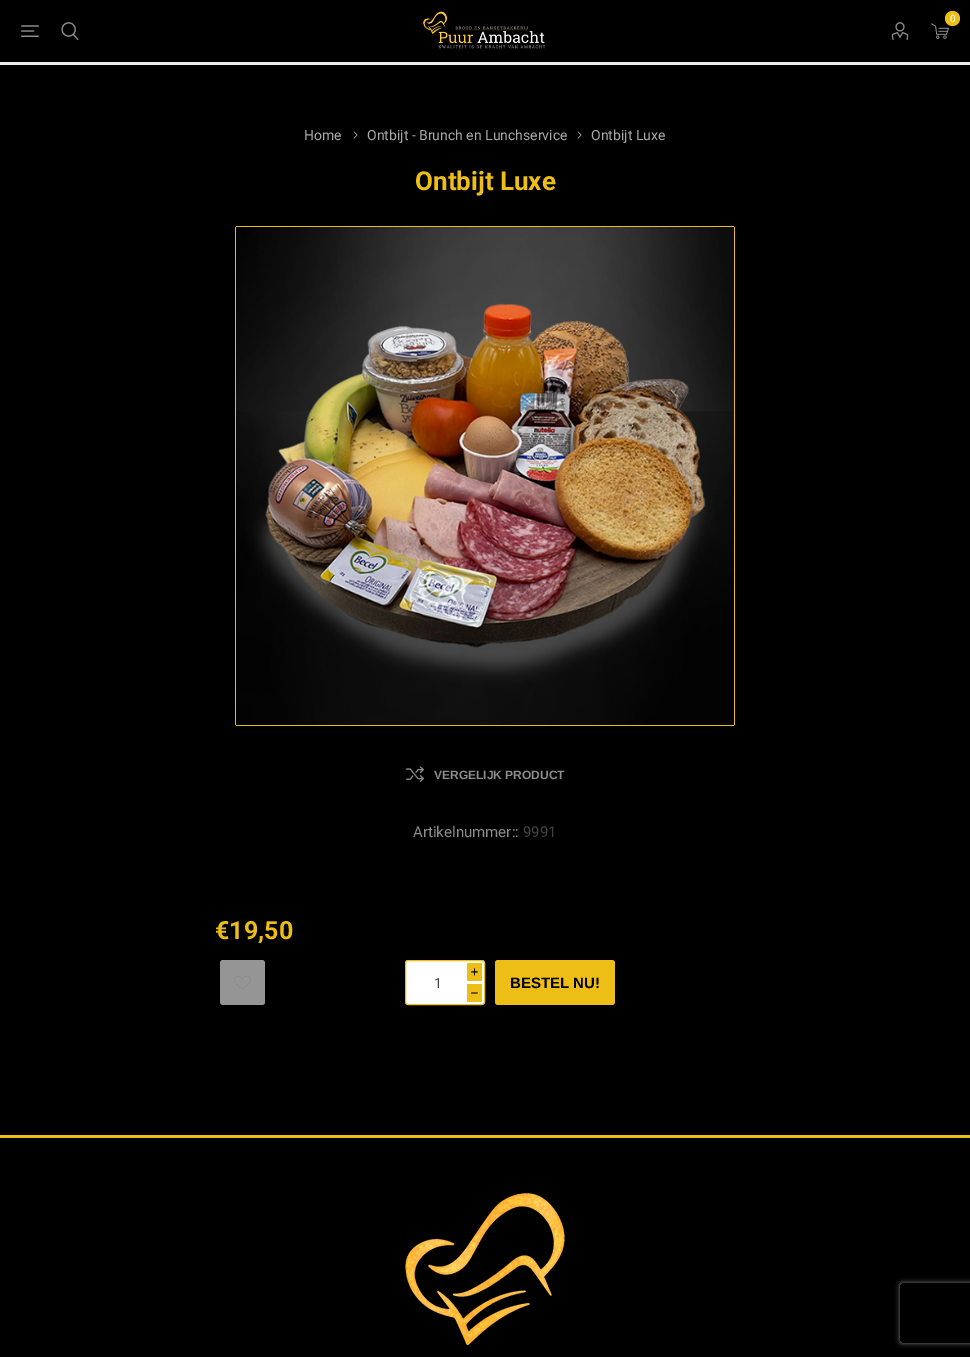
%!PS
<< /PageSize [970 1357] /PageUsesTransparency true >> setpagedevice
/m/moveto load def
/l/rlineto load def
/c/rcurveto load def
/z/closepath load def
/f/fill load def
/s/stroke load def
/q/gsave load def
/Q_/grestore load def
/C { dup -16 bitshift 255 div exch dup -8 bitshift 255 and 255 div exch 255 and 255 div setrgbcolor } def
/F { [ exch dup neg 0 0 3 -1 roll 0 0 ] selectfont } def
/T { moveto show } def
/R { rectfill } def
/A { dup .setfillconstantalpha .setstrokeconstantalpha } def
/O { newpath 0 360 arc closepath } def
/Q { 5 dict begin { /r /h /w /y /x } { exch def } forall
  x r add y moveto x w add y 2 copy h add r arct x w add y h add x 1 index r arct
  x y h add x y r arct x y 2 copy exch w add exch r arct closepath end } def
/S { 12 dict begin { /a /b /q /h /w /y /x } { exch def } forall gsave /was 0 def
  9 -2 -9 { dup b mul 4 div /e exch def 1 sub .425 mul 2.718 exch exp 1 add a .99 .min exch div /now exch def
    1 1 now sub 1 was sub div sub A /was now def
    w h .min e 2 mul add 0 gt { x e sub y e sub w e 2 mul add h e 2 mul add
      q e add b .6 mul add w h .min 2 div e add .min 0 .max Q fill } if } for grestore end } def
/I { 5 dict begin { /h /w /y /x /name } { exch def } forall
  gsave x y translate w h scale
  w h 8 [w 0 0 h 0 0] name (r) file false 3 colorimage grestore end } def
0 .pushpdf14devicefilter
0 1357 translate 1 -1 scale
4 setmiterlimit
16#000000 C
0 0 970 1357 R
16#EEEEEE C
0 62 970 3 R
(1.rgb) 423 11 123 38 I
(2.rgb) 931 23 18 16 I
16#EDBE16 C
952.5 18.5 7.5 O f
/Roboto-Regular 10 F
16#FFFFFF C
(0) 950 22 T
(3.rgb) 21 25 18 12 I
(4.rgb) 61 22 18 19 I
(5.rgb) 891 22 18 19 I
/Roboto-Regular 14 F
16#A9A9A9 C
(Home) 304 140 T
(6.rgb) 353 131 5 8 I
(Ontbijt - Brunch en Lunchservice) 367 140 T
(6.rgb) 577 131 5 8 I
(Ontbijt Luxe) 591 140 T
/Roboto-Bold 26 F
16#EDBE16 C
(Ontbijt Luxe) 415 190 T
16#EBBC16 C
238 226 m -2 0 -3 1 -3 3 c 0 494 l 0 2 1 3 3 3 c 494 0 l 2 0 3 -1 3 -3 c 0 -494 l 0 -2 -1 -3 -3 -3 c z 236 227 m 0 498 l 498 0 l 0 -498 l z eofill
(7.rgb) 236 227 498 498 I
(8.rgb) 406 766 18 16 I
/LiberationSans-Bold 12 F
16#8C8C8C C
(VERGELIJK PRODUCT) 434 779 T
/Roboto-Regular 15 F
(Artikelnummer::) 413 837 T
16#444444 C
(9991) 523 837 T
/Roboto-Bold 25 F
16#EDBE16 C
(€19,50) 215 939 T
16#959595 C
220 960 45 45 3 Q f
(9.rgb) 234 976 17 14 I
16#FFFFFF C
405.5 960.5 79 44 2.5 Q q f Q_
16#EDBE16 C
s
467 963 15 18 R
/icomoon-Regular 7 F
16#000000 C
(i) 471 975 T
/Roboto-Regular 14 F
16#444444 C
(1) 434 988 T
16#EDBE16 C
467 984 15 18 R
/icomoon-Regular 7 F
16#000000 C
(h) 471 996 T
16#EDBE16 C
495 960 120 45 3 Q f
/LiberationSans-Bold 15 F
16#000000 C
(BESTEL NU!) 510 988 T
16#EDBE16 C
0 1135 970 3 R
(10.rgb) 405 1193 160 153 I
q
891 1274 m 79 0 l 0 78 l -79 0 l z 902 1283 m 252 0 l 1 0 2 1 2 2 c 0 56 l 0 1 -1 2 -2 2 c -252 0 l -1 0 -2 -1 -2 -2 c 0 -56 l 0 -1 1 -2 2 -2 c z eoclip newpath
16#808080 C
900 1283 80 60 2 2.5 1 S
Q_
.poppdf14devicefilter showpage
